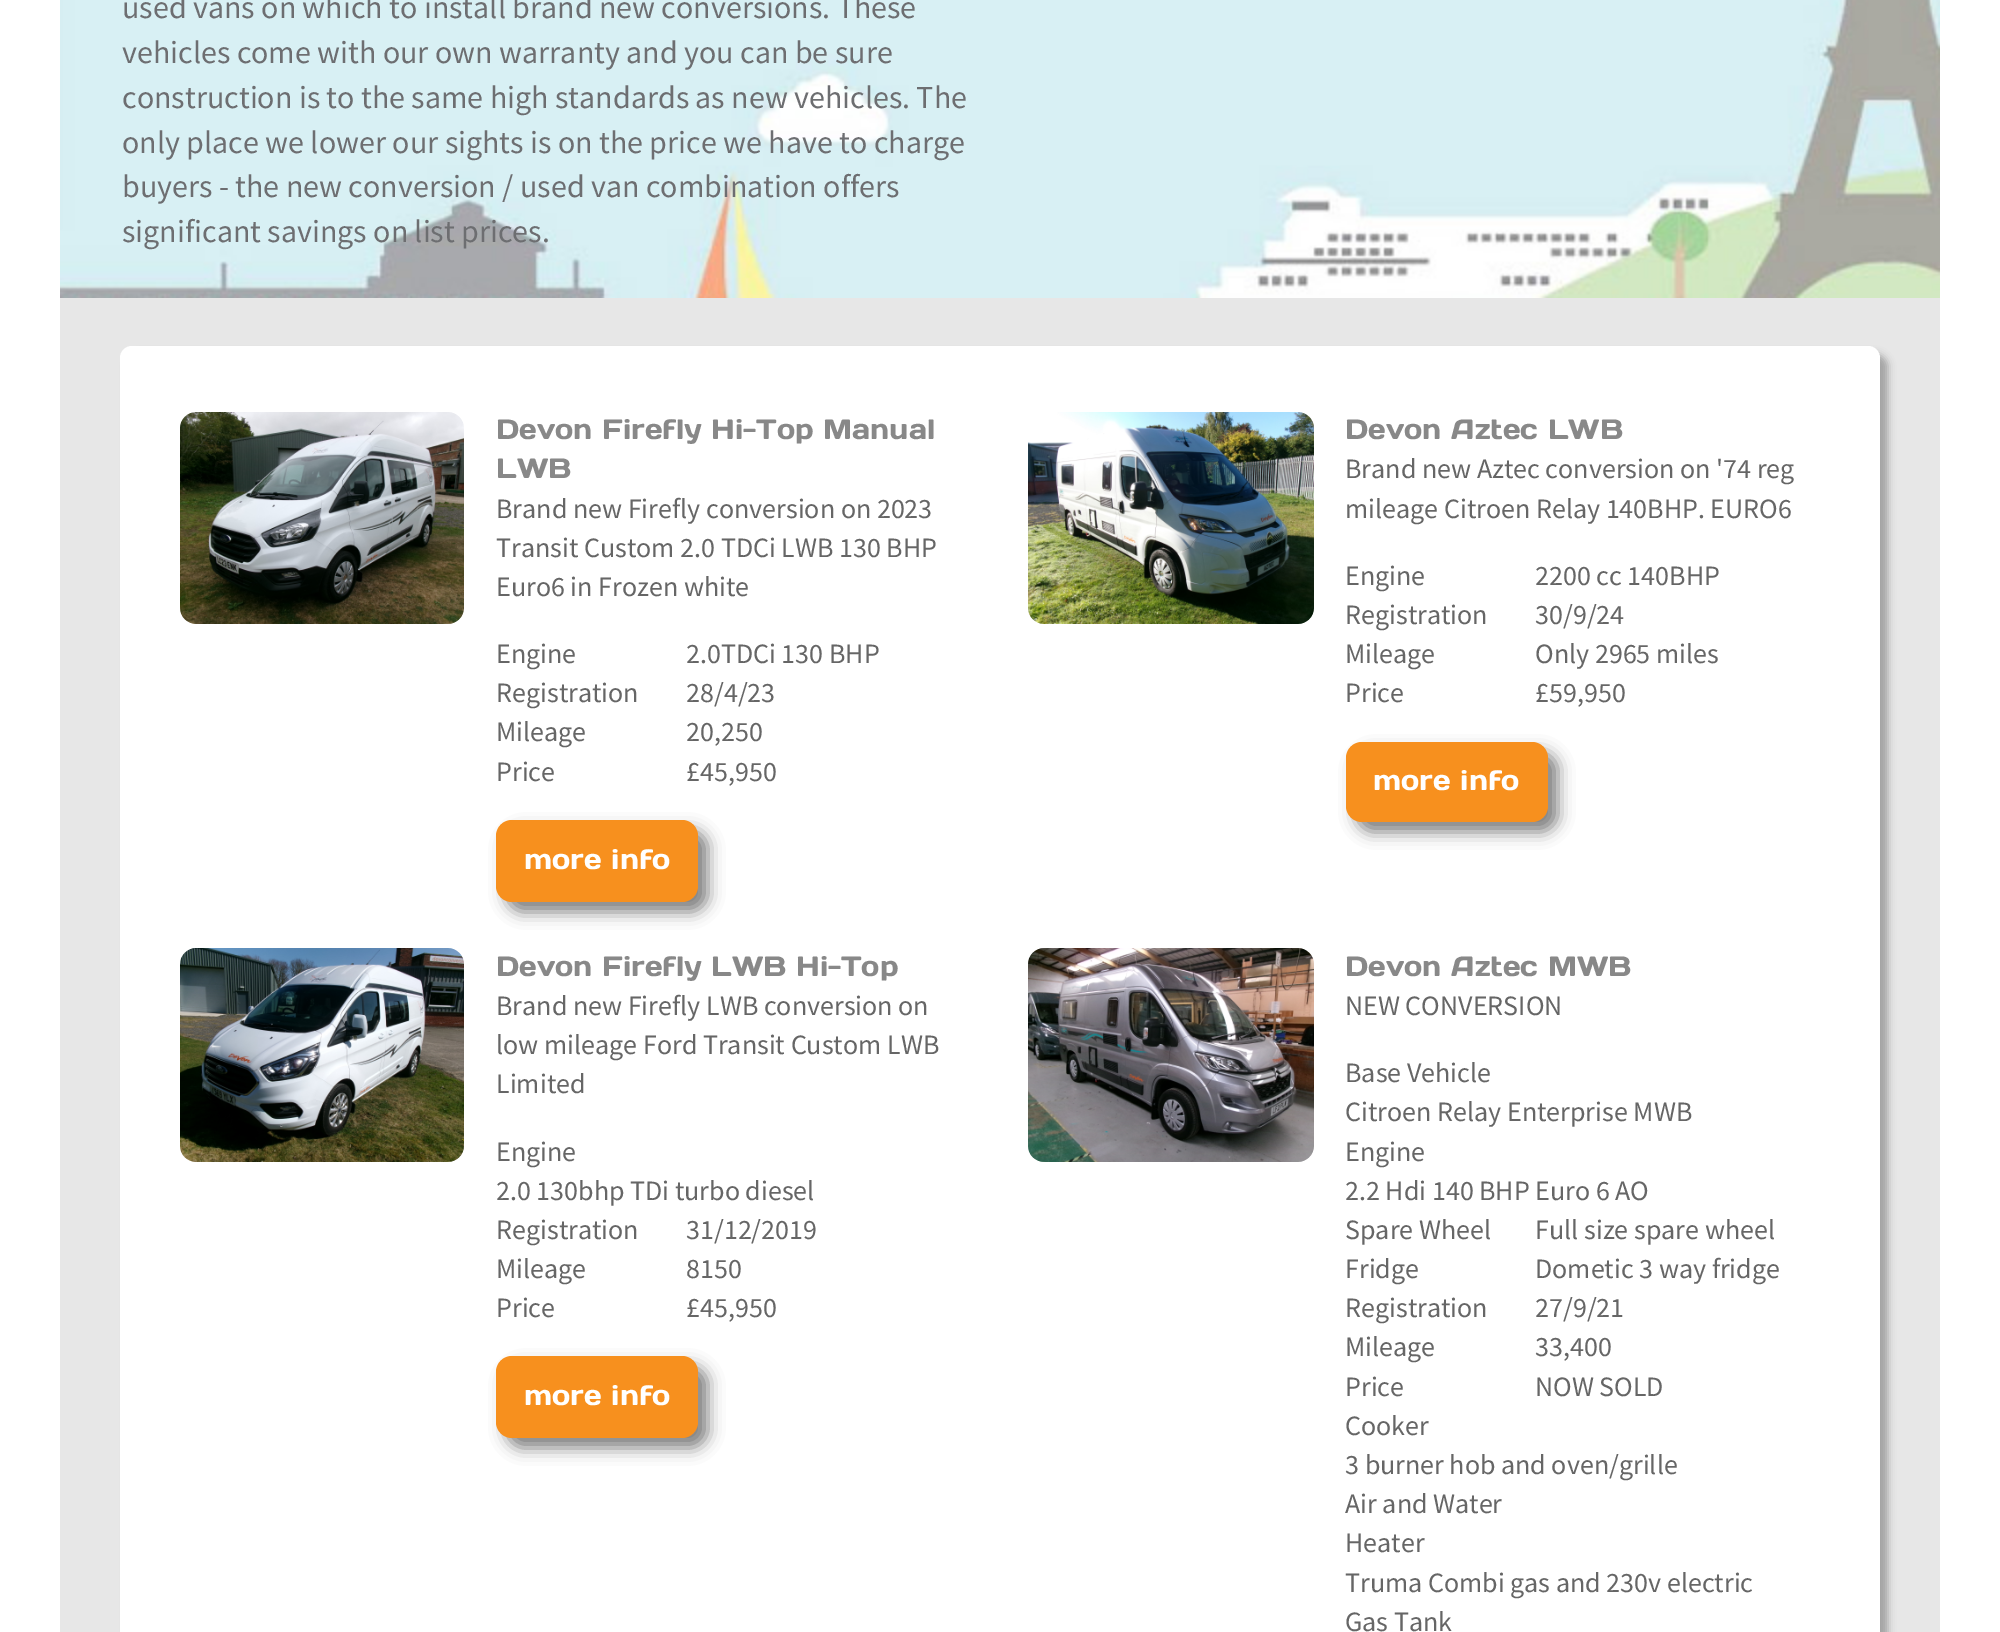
%!PS
<< /PageSize [2000 1632] /PageUsesTransparency true >> setpagedevice
/f/fill load def
/C { dup -16 bitshift 255 div exch dup -8 bitshift 255 and 255 div exch 255 and 255 div setrgbcolor } def
/F { [ exch dup neg 0 0 3 -1 roll 0 0 ] selectfont } def
/T { moveto show } def
/R { rectfill } def
/A { dup .setfillconstantalpha .setstrokeconstantalpha } def
/Q { 5 dict begin { /r /h /w /y /x } { exch def } forall
  x r add y moveto x w add y 2 copy h add r arct x w add y h add x 1 index r arct
  x y h add x y r arct x y 2 copy exch w add exch r arct closepath end } def
/S { 12 dict begin { /a /b /q /h /w /y /x } { exch def } forall gsave /was 0 def
  9 -2 -9 { dup b mul 4 div /e exch def 1 sub .425 mul 2.718 exch exp 1 add a .99 .min exch div /now exch def
    1 1 now sub 1 was sub div sub A /was now def
    w h .min e 2 mul add 0 gt { x e sub y e sub w e 2 mul add h e 2 mul add
      q e add b .6 mul add w h .min 2 div e add .min 0 .max Q fill } if } for grestore end } def
/I { 5 dict begin { /h /w /y /x /name } { exch def } forall
  gsave x y translate w h scale
  w h 8 [w 0 0 h 0 0] name (r) file false 3 colorimage grestore end } def
0 .pushpdf14devicefilter
0 1632 translate 1 -1 scale
4 setmiterlimit
16#FFFFFF C
0 0 2000 1632 R
(1.rgb) 60 0 1880 298 I
/SourceSansPro-Regular 32 F
16#6D6E71 C
(used vans on which to install brand new conversions. These) 122 18 T
(vehicles come with our own warranty and you can be sure) 122 63 T
(construction is to the same high standards as new vehicles. The) 122 108 T
(only place we lower our sights is on the price we have to charge) 122 153 T
(buyers - the new conversion / used van combination offers) 122 197 T
(significant savings on list prices.) 122 242 T
16#E7E7E7 C
60 298 1880 1334 R
16#000000 C
128 354 1760 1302 12 4 .3 S
16#FFFFFF C
120 346 1760 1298 12 Q f
(2.rgb) 180 412 284 212 I
/DaysOne-Regular 28 F
16#888888 C
(Devon Firefly Hi-Top Manual) 496 439 T
(LWB) 496 478 T
/SourceSansPro-Regular 28 F
16#666666 C
(Brand new Firefly conversion on 2023) 496 518 T
(Transit Custom 2.0 TDCi LWB 130 BHP) 496 557 T
(Euro6 in Frozen white) 496 596 T
(Engine) 496 663 T
(2.0TDCi 130 BHP) 686 663 T
(Registration) 496 702 T
(28/4/23) 686 702 T
(Mileage) 496 741 T
(20,250) 686 741 T
(Price) 496 781 T
(£45,950) 686 781 T
16#000000 C
506 830 202 82 16 8 .5 S
16#F7901E C
496 820 202 82 16 Q f
/DaysOne-Regular 28 F
16#FFFFFF C
(more info) 524 869 T
(3.rgb) 1028 412 286 212 I
16#888888 C
(Devon Aztec LWB) 1345 439 T
/SourceSansPro-Regular 28 F
16#666666 C
(Brand new Aztec conversion on '74 reg) 1345 478 T
(mileage Citroen Relay 140BHP. EURO6) 1345 518 T
(Engine) 1345 585 T
(2200 cc 140BHP) 1535 585 T
(Registration) 1345 624 T
(30/9/24) 1535 624 T
(Mileage) 1345 663 T
(Only 2965 miles) 1535 663 T
(Price) 1345 702 T
(£59,950) 1535 702 T
16#000000 C
1356 752 202 80 16 8 .5 S
16#F7901E C
1346 742 202 80 16 Q f
/DaysOne-Regular 28 F
16#FFFFFF C
(more info) 1373 790 T
(4.rgb) 180 948 284 214 I
16#888888 C
(Devon Firefly LWB Hi-Top) 496 976 T
/SourceSansPro-Regular 28 F
16#666666 C
(Brand new Firefly LWB conversion on) 496 1015 T
(low mileage Ford Transit Custom LWB) 496 1054 T
(Limited) 496 1093 T
(Engine) 496 1161 T
(2.0 130bhp TDi turbo diesel) 496 1200 T
(Registration) 496 1239 T
(31/12/2019) 686 1239 T
(Mileage) 496 1278 T
(8150) 686 1278 T
(Price) 496 1317 T
(£45,950) 686 1317 T
16#000000 C
506 1366 202 82 16 8 .5 S
16#F7901E C
496 1356 202 82 16 Q f
/DaysOne-Regular 28 F
16#FFFFFF C
(more info) 524 1405 T
(5.rgb) 1028 948 286 214 I
16#888888 C
(Devon Aztec MWB) 1345 976 T
/SourceSansPro-Regular 28 F
16#666666 C
(NEW CONVERSION) 1345 1015 T
(Base Vehicle) 1345 1082 T
(Citroen Relay Enterprise MWB) 1345 1121 T
(Engine) 1345 1161 T
(2.2 Hdi 140 BHP Euro 6 AO) 1345 1200 T
(Spare Wheel) 1345 1239 T
(Full size spare wheel) 1535 1239 T
(Fridge) 1345 1278 T
(Dometic 3 way fridge) 1535 1278 T
(Registration) 1345 1317 T
(27/9/21) 1535 1317 T
(Mileage) 1345 1356 T
(33,400) 1535 1356 T
(Price) 1345 1396 T
(NOW SOLD) 1535 1396 T
(Cooker) 1345 1435 T
(3 burner hob and oven/grille) 1345 1474 T
(Air and Water) 1345 1513 T
(Heater) 1345 1552 T
(Truma Combi gas and 230v electric) 1345 1592 T
(Gas Tank) 1345 1631 T
.poppdf14devicefilter showpage
